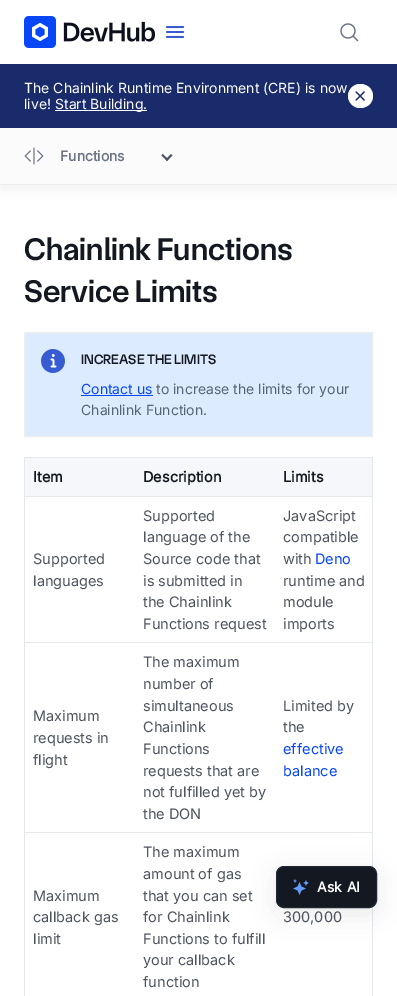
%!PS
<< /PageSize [397 996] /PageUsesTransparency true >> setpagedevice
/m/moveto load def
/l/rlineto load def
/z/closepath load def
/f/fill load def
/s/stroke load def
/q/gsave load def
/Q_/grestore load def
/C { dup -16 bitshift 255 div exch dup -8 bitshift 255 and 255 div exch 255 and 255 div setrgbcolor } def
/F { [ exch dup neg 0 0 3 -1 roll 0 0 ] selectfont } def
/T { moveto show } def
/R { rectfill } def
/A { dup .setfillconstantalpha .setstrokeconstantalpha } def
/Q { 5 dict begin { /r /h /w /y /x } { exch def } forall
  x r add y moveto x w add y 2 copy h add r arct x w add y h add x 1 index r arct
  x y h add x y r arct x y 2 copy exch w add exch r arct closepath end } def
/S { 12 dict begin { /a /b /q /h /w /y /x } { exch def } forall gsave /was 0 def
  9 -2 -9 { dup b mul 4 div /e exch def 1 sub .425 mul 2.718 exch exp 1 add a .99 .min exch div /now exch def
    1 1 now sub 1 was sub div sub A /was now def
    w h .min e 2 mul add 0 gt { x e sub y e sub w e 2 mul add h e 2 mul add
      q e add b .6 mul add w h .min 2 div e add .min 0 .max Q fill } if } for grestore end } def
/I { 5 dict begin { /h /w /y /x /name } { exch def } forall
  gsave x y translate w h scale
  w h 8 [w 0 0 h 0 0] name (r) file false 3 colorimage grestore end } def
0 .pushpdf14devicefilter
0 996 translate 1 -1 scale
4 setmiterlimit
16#FFFFFF C
0 0 397 996 R
(1.rgb) 24 16 131 32 I
(2.rgb) 165 26 20 12 I
(3.rgb) 340 23 19 19 I
16#1A2B6B C
0 64 397 64 R
/Inter-Regular 14 F
16#FFFFFF C
(The Chainlink Runtime Environment \(CRE\) is now) 24 93 T
(live!) 24 109 T
55 110 92 1 R
(Start Building.) 55 109 T
348 84 25 24 12 Q f
(4.rgb) 348 84 20 24 I
16#000000 C
0 132 397 57 0 6 .06 S
16#FBFBFC C
0 130 397 54 R
16#ECEDEF C
0 184 397 1 R
(5.rgb) 24 147 20 18 I
/Inter-Bold 14 F
16#6C7585 C
(Functions) 60 161 T
16#4E5560 C
171 154 m 1.5 1.5 l -5.5 5.5 l -1.5 -1.5 l z f
162.5 154 m 6 5.5 l -1.5 1.5 l -5.5 -5.5 l z f
/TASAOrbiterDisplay-SemiBold 32 F
16#141921 C
(Chainlink Functions) 24 260 T
(Service Limits) 24 302 T
16#DCEBFF C
24.5 332.5 m 348 0 l 0 104 l -348 0 l z q f Q_
16#EEEEEE C
s
(6.rgb) 41 349 24 24 I
/TASAOrbiterDisplay-SemiBold 14 F
16#141921 C
(INCREASE THE LIMITS) 81 364 T
/Inter-Regular 14 F
16#0847F7 C
(Contact us) 81 394 T
81 395 72 1 R
16#586474 C
(to increase the limits for your) 156 394 T
(Chainlink Function.) 81 415 T
16#E4E8ED C
24 457 349 1 R
372 457 1 539 R
24 457 1 539 R
16#F5F7FA C
25 458 347 38 R
/Inter-Bold 14.5 F
16#141921 C
(Item) 33 482 T
(Description) 143 482 T
(Limits) 283 482 T
16#E4E8ED C
24 496 349 1 R
/Inter-Regular 14.5 F
16#4E5560 C
(Supported) 33 564 T
(languages) 33 586 T
(Supported) 143 521 T
(language of the) 143 542 T
(Source code that) 143 564 T
(is submitted in) 143 586 T
(the Chainlink) 143 607 T
(Functions request) 143 629 T
(JavaScript) 283 521 T
(compatible) 283 542 T
(with) 283 564 T
16#0847F7 C
(Deno) 315 564 T
16#4E5560 C
(runtime and) 283 586 T
(module) 283 607 T
(imports) 283 629 T
16#E4E8ED C
24 642 349 1 R
16#4E5560 C
(Maximum) 33 721 T
(requests in) 33 743 T
(flight) 33 765 T
(The maximum) 143 667 T
(number of) 143 689 T
(simultaneous) 143 711 T
(Chainlink) 143 732 T
(Functions) 143 754 T
(requests that are) 143 776 T
(not fulfilled yet by) 143 797 T
(the DON) 143 819 T
(Limited by) 283 711 T
(the) 283 732 T
16#0847F7 C
(effective) 283 754 T
(balance) 283 776 T
16#E4E8ED C
24 832 349 1 R
16#4E5560 C
(Maximum) 33 901 T
(callback gas) 33 922 T
(limit) 33 944 T
(The maximum) 143 857 T
(amount of gas) 143 879 T
(that you can set) 143 901 T
(for Chainlink) 143 922 T
(Functions to fulfill) 143 944 T
(your callback) 143 965 T
(function) 143 987 T
(300,000) 283 922 T
16#000000 C
276 872 101 42 8 12 .08 S
16#141921 C
276.5 866.5 100 41 7.5 Q q f Q_
16#212732 C
s
(7.rgb) 293 879 16 16 I
/Inter-Bold 14 F
16#FFFFFF C
317 892 m 1 0 32 (Ask AI) widthshow
.poppdf14devicefilter showpage
